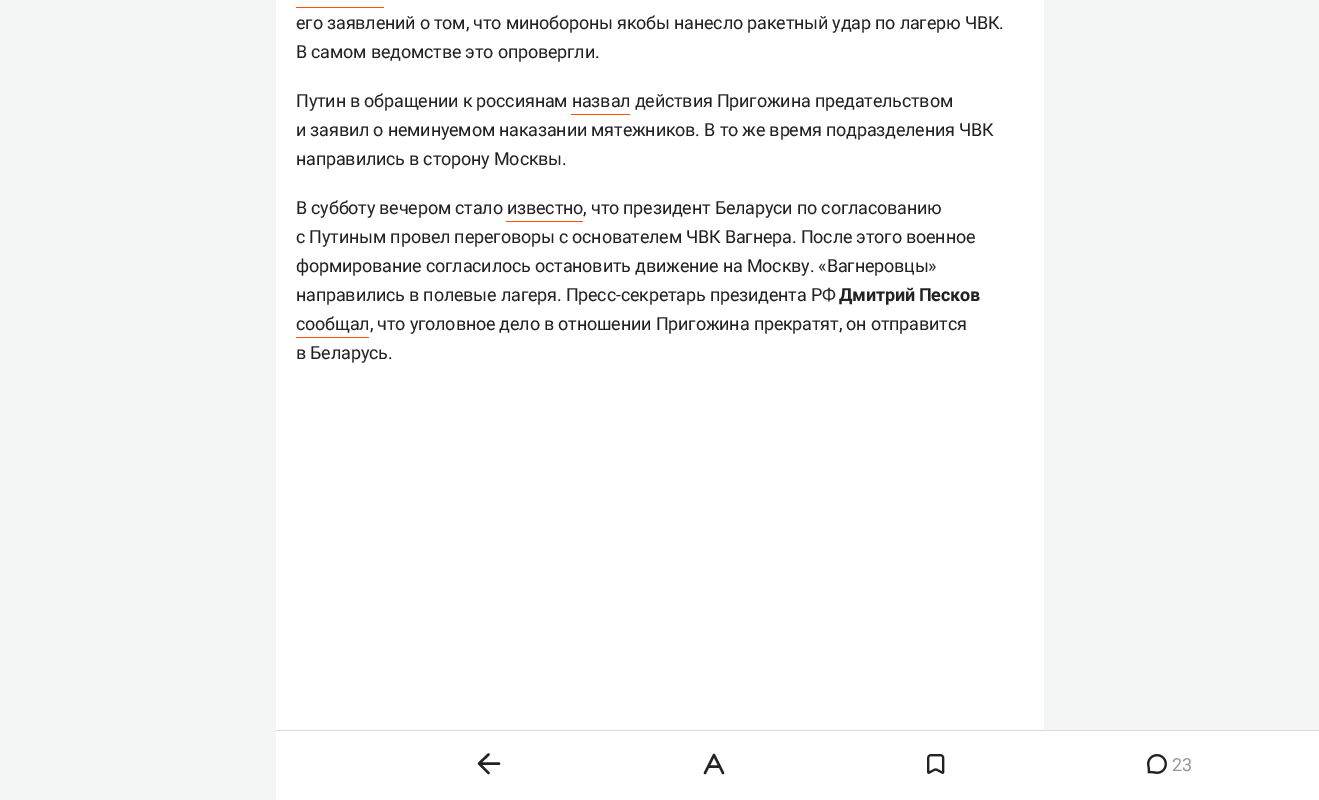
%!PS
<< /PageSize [1319 800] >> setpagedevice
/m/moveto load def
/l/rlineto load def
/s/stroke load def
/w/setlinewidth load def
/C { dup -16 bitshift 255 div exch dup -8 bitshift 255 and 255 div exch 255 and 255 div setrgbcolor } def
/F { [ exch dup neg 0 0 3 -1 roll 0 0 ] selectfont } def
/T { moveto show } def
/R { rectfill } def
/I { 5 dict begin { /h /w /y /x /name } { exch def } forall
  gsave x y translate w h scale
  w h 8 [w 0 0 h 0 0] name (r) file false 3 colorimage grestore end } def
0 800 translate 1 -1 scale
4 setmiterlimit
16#F4F5F5 C
0 0 1319 800 R
16#FFFFFF C
276 0 768 730 R
16#F95102 C
296 7 88 1 R
/Roboto-Regular 18 F
16#222222 C
296 29 m -.2 0 (его заявлений о том, что минобороны якобы нанесло ракетный удар по лагерю ЧВК.) ashow
296 58 m -.2 0 (В самом ведомстве это опровергли.) ashow
296 107 m -.2 0 (Путин в обращении к россиянам назвал действия Пригожина предательством) ashow
16#F95102 C
571 114 59 1 R
16#222222 C
296 136 m -.2 0 (и заявил о неминуемом наказании мятежников. В то же время подразделения ЧВК) ashow
296 165 m -.2 0 (направились в сторону Москвы.) ashow
296 214 m -.2 0 (В субботу вечером стало известно, что президент Беларуси по согласованию) ashow
16#F95102 C
506 221 77 1 R
16#222222 C
296 243 m -.2 0 (с Путиным провел переговоры с основателем ЧВК Вагнера. После этого военное) ashow
296 272 m -.2 0 (формирование согласилось остановить движение на Москву. «Вагнеровцы») ashow
296 301 m -.2 0 (направились в полевые лагеря. Пресс-секретарь президента РФ) ashow
/Roboto-Bold 18 F
839 301 m -.2 0 (Дмитрий Песков) ashow
/Roboto-Regular 18 F
296 330 m -.2 0 (сообщал, что уголовное дело в отношении Пригожина прекратят, он отправится) ashow
16#F95102 C
296 337 73 1 R
16#222222 C
296 359 m -.2 0 (в Беларусь.) ashow
16#FFFFFF C
276 731 1043 69 R
16#D9D9D9 C
276 730 1043 1 R
16#222222 C
2.4 w
1 setlinecap
1 setlinejoin
488.5 754.5 m -9.5 9 l 9.5 9.5 l 499 763.5 m -19.5 0 l s
705 773 m 9 -18 l 9 18 l 708.5 766.5 m 11 0 l s
(1.rgb) 927 754 18 20 I
(2.rgb) 1147 754 20 20 I
16#969696 C
(23) 1172 771 T
showpage
